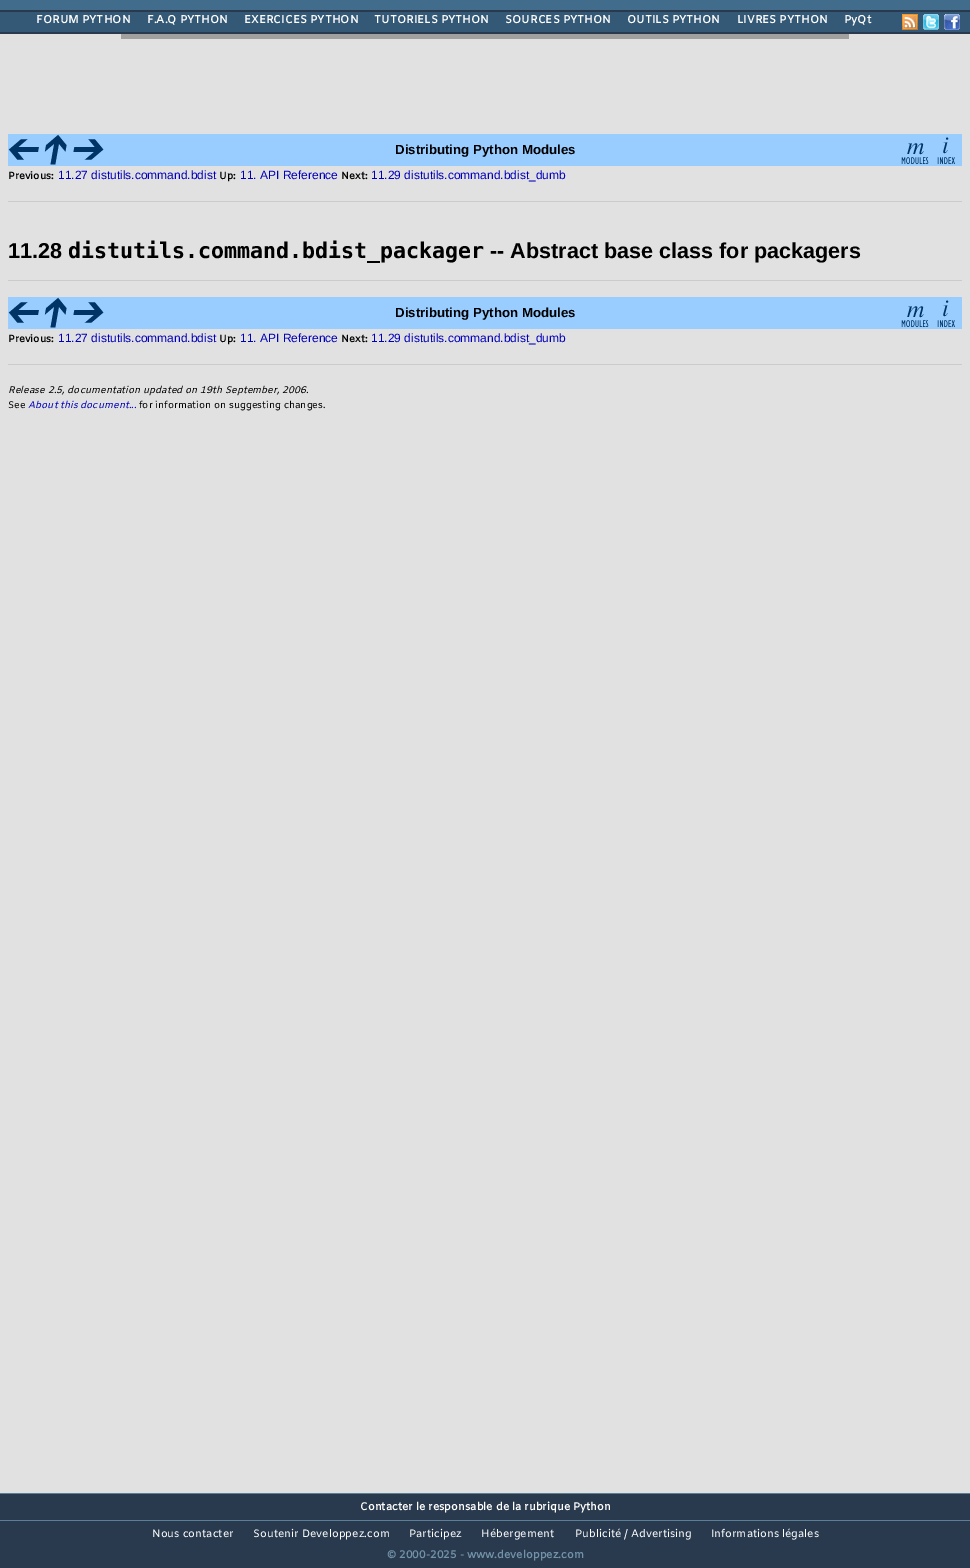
%!PS
<< /PageSize [970 1568] >> setpagedevice
/C { dup -16 bitshift 255 div exch dup -8 bitshift 255 and 255 div exch 255 and 255 div setrgbcolor } def
/F { [ exch dup neg 0 0 3 -1 roll 0 0 ] selectfont } def
/T { moveto show } def
/R { rectfill } def
/I { 5 dict begin { /h /w /y /x /name } { exch def } forall
  gsave x y translate w h scale
  w h 8 [w 0 0 h 0 0] name (r) file false 3 colorimage grestore end } def
0 1568 translate 1 -1 scale
4 setmiterlimit
16#293A4E C
0 0 970 1568 R
16#426C8C C
0 0 970 10 R
16#345976 C
0 12 970 20 R
/Amiko-Bold 11 F
16#FFFFFF C
(FORUM PYTHON) 36 23 T
(F.A.Q PYTHON) 147 23 T
(EXERCICES PYTHON) 244 23 T
(TUTORIELS PYTHON) 374 23 T
(SOURCES PYTHON) 505 23 T
(OUTILS PYTHON) 627 23 T
(LIVRES PYTHON) 737 23 T
(PyQt) 844 23 T
(1.rgb) 902 14 16 16 I
(2.rgb) 923 14 16 16 I
(3.rgb) 944 14 16 16 I
16#E1E1E2 C
0 34 970 1459 R
16#A0A0A0 C
121 34 728 5 R
16#99CCFF C
8 134 954 32 R
(4.rgb) 8 139 31 21 I
(5.rgb) 44 134 23 31 I
(6.rgb) 73 139 31 21 I
/LiberationSans-Bold 13.25 F
16#000000 C
(Distributing Python Modules) 395 154 T
(7.rgb) 901 143 28 21 I
(8.rgb) 937 137 18 27 I
/Amiko-Bold 10 F
(Previous:) 8 179 T
/LiberationSans-Regular 12 F
16#0000BB C
(11.27 distutils.command.bdist) 58 179 T
/Amiko-Bold 10 F
16#000000 C
(Up:) 219 179 T
/LiberationSans-Regular 12 F
16#0000BB C
(11. API Reference) 240 179 T
/Amiko-Bold 10 F
16#000000 C
(Next:) 341 179 T
/LiberationSans-Regular 12 F
16#0000BB C
(11.29 distutils.command.bdist_dumb) 371 179 T
16#CBCBCB C
8 201 954 1 R
/LiberationSans-Bold 21.6 F
16#000000 C
(11.28) 8 258 T
/DejaVuSansMono-Bold 21.6 F
(distutils.command.bdist_packager) 68 258 T
/LiberationSans-Bold 21.6 F
(-- Abstract base class for packagers) 490 258 T
16#CBCBCB C
8 280 954 1 R
16#99CCFF C
8 297 954 32 R
(4.rgb) 8 302 31 21 I
(5.rgb) 44 297 23 31 I
(6.rgb) 73 302 31 21 I
/LiberationSans-Bold 13.25 F
16#000000 C
(Distributing Python Modules) 395 317 T
(7.rgb) 901 306 28 21 I
(8.rgb) 937 300 18 27 I
/Amiko-Bold 10 F
(Previous:) 8 342 T
/LiberationSans-Regular 12 F
16#0000BB C
(11.27 distutils.command.bdist) 58 342 T
/Amiko-Bold 10 F
16#000000 C
(Up:) 219 342 T
/LiberationSans-Regular 12 F
16#0000BB C
(11. API Reference) 240 342 T
/Amiko-Bold 10 F
16#000000 C
(Next:) 341 342 T
/LiberationSans-Regular 12 F
16#0000BB C
(11.29 distutils.command.bdist_dumb) 371 342 T
16#CBCBCB C
8 364 954 1 R
/Amiko-Italic 9.6 F
16#000000 C
(Release 2.5, documentation updated on 19th September, 2006.) 8 393 T
/Amiko-Regular 9.6 F
(See) 8 408 T
/Amiko-Italic 9.6 F
16#0000BB C
(About this document...) 28 408 T
/Amiko-Regular 9.6 F
16#000000 C
(for information on suggesting changes.) 139 408 T
16#5A7F97 C
0 1493 970 1 R
0 1520 970 1 R
/Amiko-Bold 10.7 F
16#FFFFFF C
(Contacter le responsable de la rubrique Python) 360 1510 T
/Amiko-Regular 10.7 F
(Nous contacter) 152 1537 T
(Soutenir Developpez.com) 253 1537 T
(Participez) 409 1537 T
(Hébergement) 481 1537 T
(Publicité / Advertising) 575 1537 T
(Informations légales) 711 1537 T
/Amiko-Bold 10.7 F
16#7292A7 C
(© 2000-2025 - www.developpez.com) 387 1558 T
showpage
